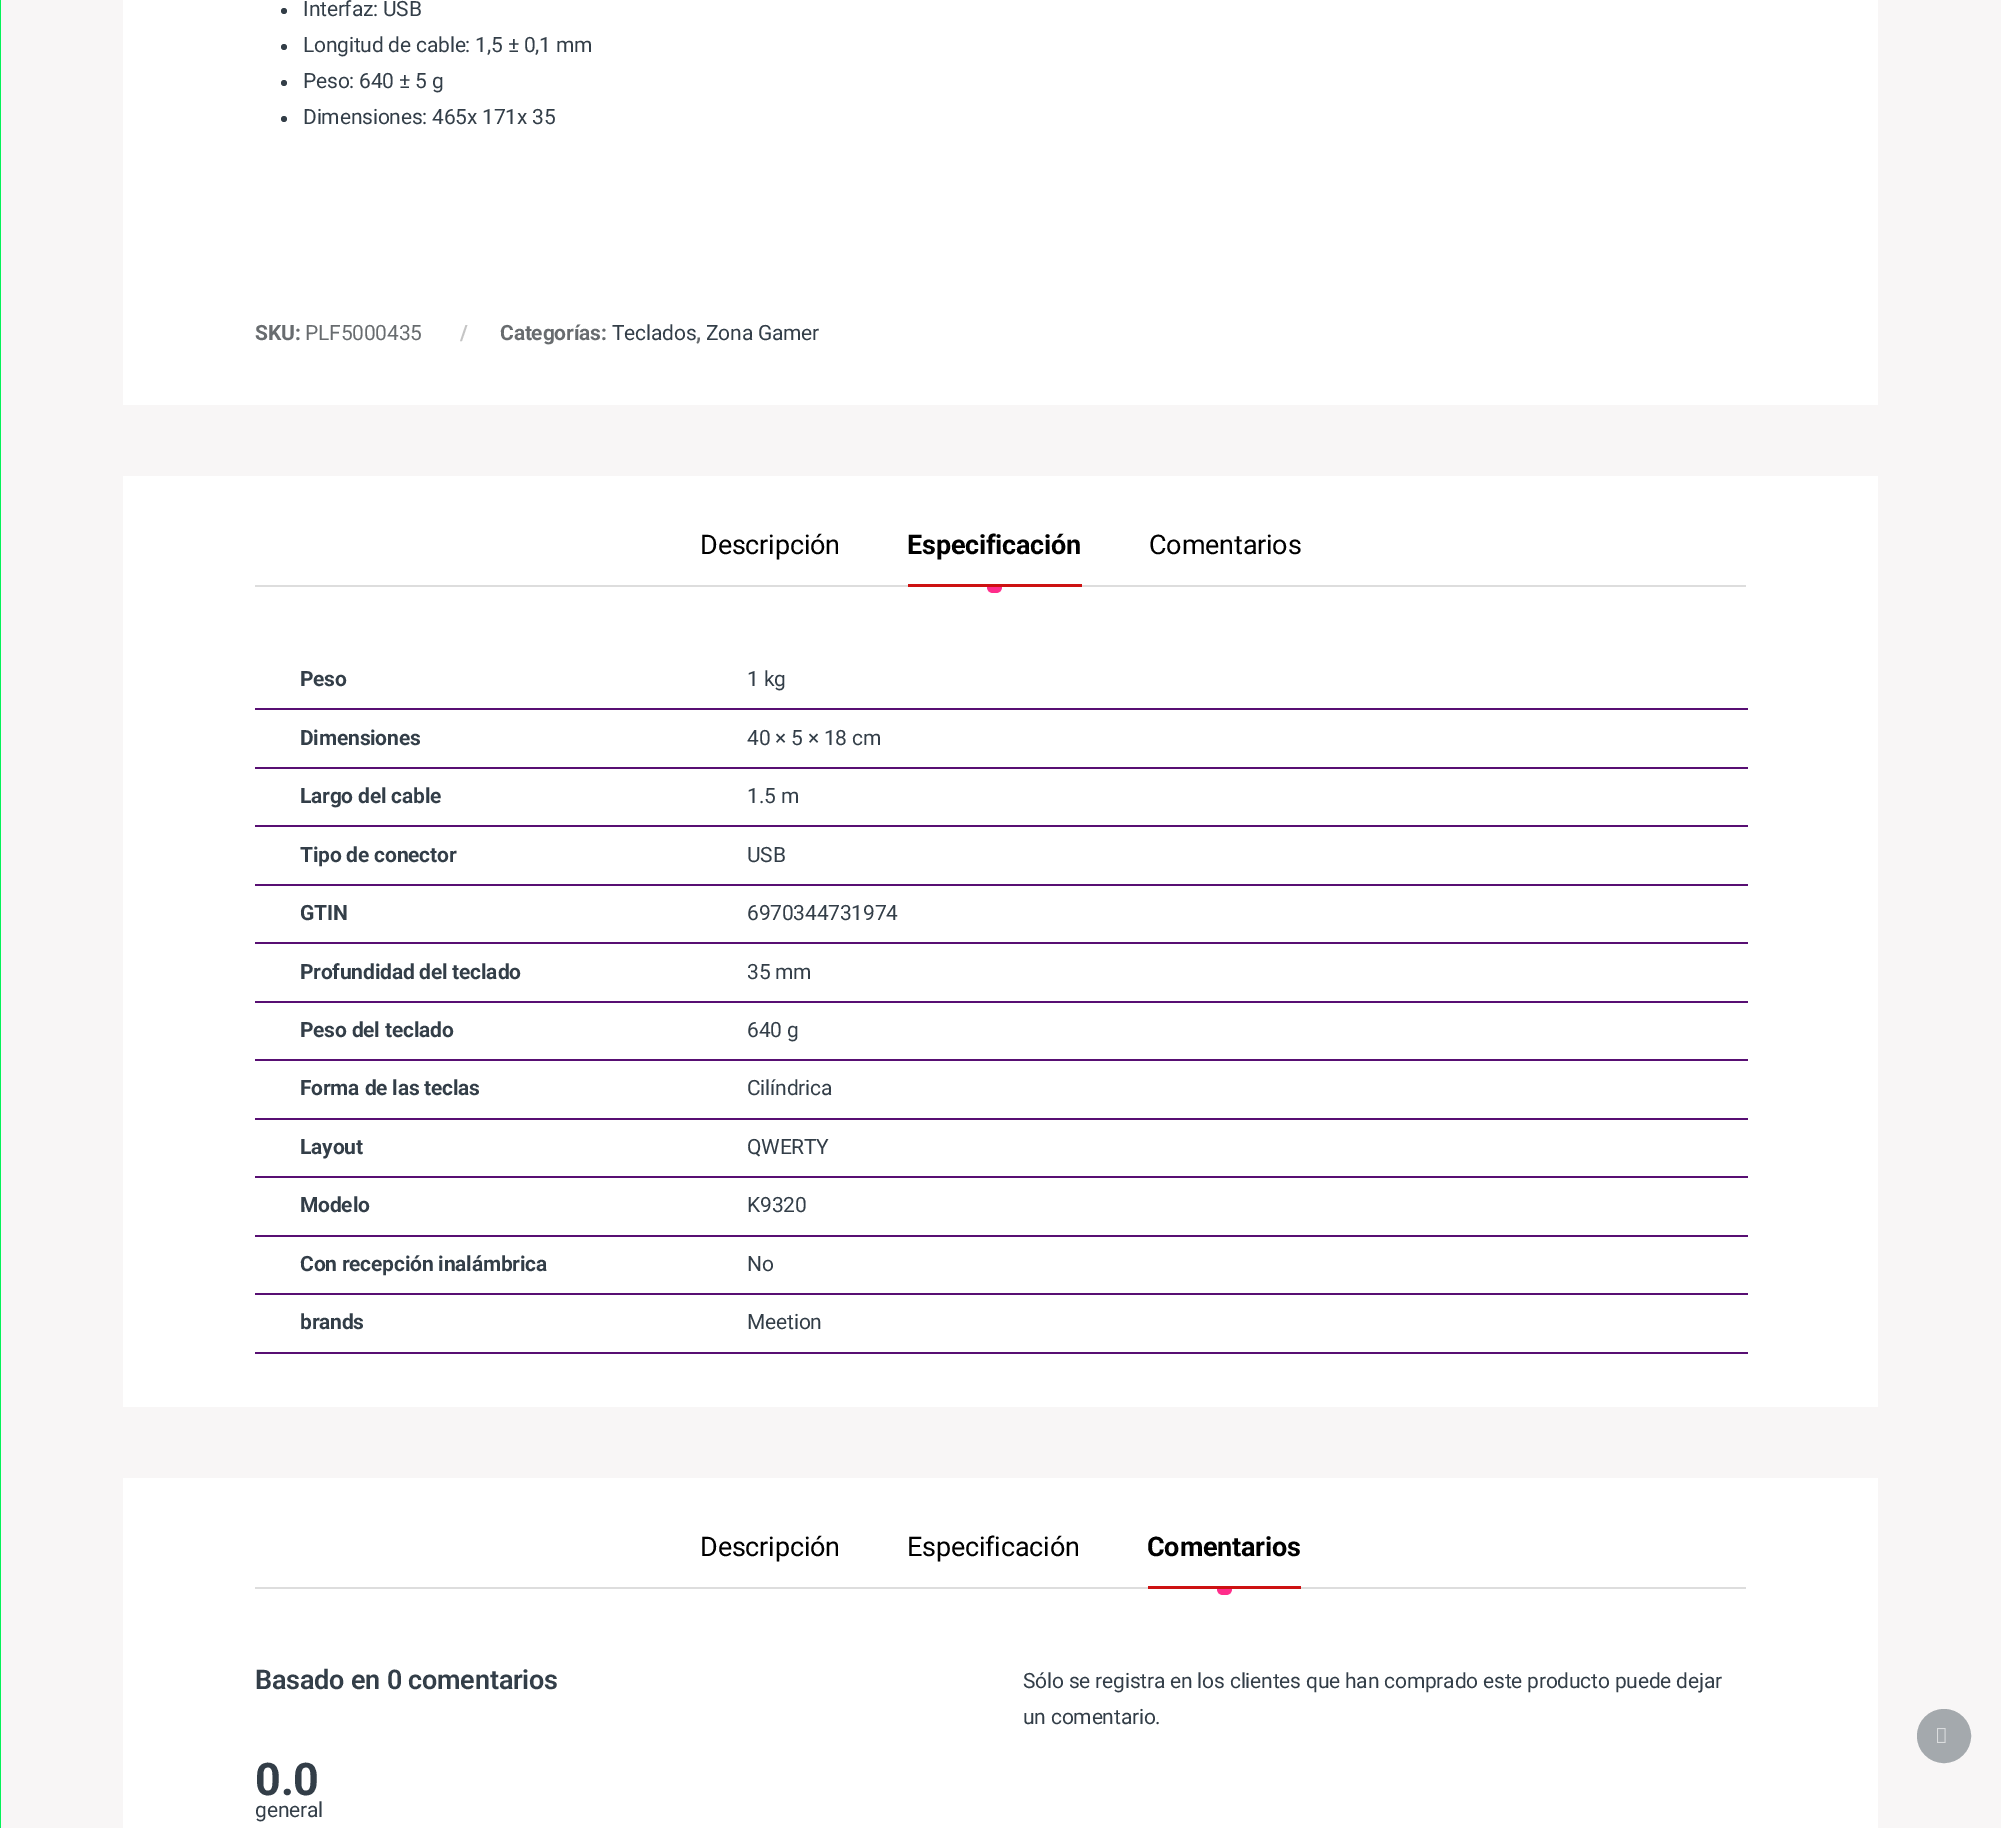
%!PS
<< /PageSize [2001 1828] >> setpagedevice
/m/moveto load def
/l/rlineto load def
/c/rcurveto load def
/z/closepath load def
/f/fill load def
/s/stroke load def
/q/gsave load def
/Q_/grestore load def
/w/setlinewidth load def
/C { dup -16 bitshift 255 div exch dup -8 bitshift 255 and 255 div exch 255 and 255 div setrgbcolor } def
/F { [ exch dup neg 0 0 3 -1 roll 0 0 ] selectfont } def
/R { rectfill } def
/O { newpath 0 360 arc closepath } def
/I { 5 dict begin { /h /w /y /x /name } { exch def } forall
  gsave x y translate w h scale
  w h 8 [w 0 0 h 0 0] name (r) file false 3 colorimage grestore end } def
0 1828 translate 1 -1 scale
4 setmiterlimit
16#F8F6F6 C
0 0 2001 1828 R
16#05F258 C
0 0 1 1828 R
16#FFFFFF C
123 0 1755 405 R
16#333E48 C
284 11 3 O f
/Roboto-Regular 21 F
303 16 m -.2 0 (Interfaz: USB) ashow
284 47 3 O f
303 52 m -.2 0 (Longitud de cable: 1,5 ± 0,1 mm) ashow
284 83 3 O f
303 88 m -.2 0 (Peso: 640 ± 5 g) ashow
284 119 3 O f
303 124 m -.2 0 (Dimensiones: 465x 171x 35) ashow
/Roboto-Bold 21 F
16#686C6F C
255 340 m -.2 0 (SKU:) ashow
/Roboto-Regular 21 F
305 340 m -.2 0 (PLF5000435) ashow
/Roboto-Bold 21 F
16#C5C5C5 C
460 340 m -.2 0 (/) ashow
16#686C6F C
500 340 m -.2 0 (Categorías:) ashow
/Roboto-Regular 21 F
16#333E48 C
612 340 m -.2 0 (Teclados) ashow
/Roboto-Bold 21 F
16#686C6F C
696 340 m -.2 0 (,) ashow
/Roboto-Regular 21 F
16#333E48 C
706 340 m -.2 0 (Zona Gamer) ashow
16#FFFFFF C
123 476 1755 931 R
16#DDDDDD C
255 585 1491 2 R
/Roboto-Regular 27 F
16#000000 C
700 554 m -.2 0 (Descripción) ashow
/Roboto-Bold 27 F
907 554 m -.2 0 (Especificación) ashow
16#CD1111 C
908 584 174 3 R
16#FF2D8B C
987 587 m 15 0 l 0 3.5 -2.5 6 -6 6 c -3 0 l -3.5 0 -6 -2.5 -6 -6 c z f
/Roboto-Regular 27 F
16#000000 C
1149 554 m -.2 0 (Comentarios) ashow
/Roboto-Bold 21 F
16#333E48 C
300 686 m -.2 0 (Peso) ashow
16#580F73 C
255 708 1493 2 R
/Roboto-Regular 21 F
16#333E48 C
747 686 m -.2 0 (1 kg) ashow
/Roboto-Bold 21 F
300 745 m -.2 0 (Dimensiones) ashow
16#580F73 C
255 767 1493 2 R
/Roboto-Regular 21 F
16#333E48 C
747 745 m -.2 0 (40 × 5 × 18 cm) ashow
/Roboto-Bold 21 F
300 803 m -.2 0 (Largo del cable) ashow
16#580F73 C
255 825 1493 2 R
/Roboto-Regular 21 F
16#333E48 C
747 803 m -.2 0 (1.5 m) ashow
/Roboto-Bold 21 F
300 862 m -.2 0 (Tipo de conector) ashow
16#580F73 C
255 884 1493 2 R
/Roboto-Regular 21 F
16#333E48 C
747 862 m -.2 0 (USB) ashow
/Roboto-Bold 21 F
300 920 m -.2 0 (GTIN) ashow
16#580F73 C
255 942 1493 2 R
/Roboto-Regular 21 F
16#333E48 C
747 920 m -.2 0 (6970344731974) ashow
/Roboto-Bold 21 F
300 979 m -.2 0 (Profundidad del teclado) ashow
16#580F73 C
255 1001 1493 2 R
/Roboto-Regular 21 F
16#333E48 C
747 979 m -.2 0 (35 mm) ashow
/Roboto-Bold 21 F
300 1037 m -.2 0 (Peso del teclado) ashow
16#580F73 C
255 1059 1493 2 R
/Roboto-Regular 21 F
16#333E48 C
747 1037 m -.2 0 (640 g) ashow
/Roboto-Bold 21 F
300 1095 m -.2 0 (Forma de las teclas) ashow
16#580F73 C
255 1118 1493 2 R
/Roboto-Regular 21 F
16#333E48 C
747 1095 m -.2 0 (Cilíndrica) ashow
/Roboto-Bold 21 F
300 1154 m -.2 0 (Layout) ashow
16#580F73 C
255 1176 1493 2 R
/Roboto-Regular 21 F
16#333E48 C
747 1154 m -.2 0 (QWERTY) ashow
/Roboto-Bold 21 F
300 1212 m -.2 0 (Modelo) ashow
16#580F73 C
255 1235 1493 2 R
/Roboto-Regular 21 F
16#333E48 C
747 1212 m -.2 0 (K9320) ashow
/Roboto-Bold 21 F
300 1271 m -.2 0 (Con recepción inalámbrica) ashow
16#580F73 C
255 1293 1493 2 R
/Roboto-Regular 21 F
16#333E48 C
747 1271 m -.2 0 (No) ashow
/Roboto-Bold 21 F
300 1329 m -.2 0 (brands) ashow
16#580F73 C
255 1352 1493 2 R
/Roboto-Regular 21 F
16#333E48 C
747 1329 m -.2 0 (Meetion) ashow
16#FFFFFF C
123 1478 1755 350 R
16#DDDDDD C
255 1587 1491 2 R
/Roboto-Regular 27 F
16#000000 C
700 1556 m -.2 0 (Descripción) ashow
907 1556 m -.2 0 (Especificación) ashow
/Roboto-Bold 27 F
1147 1556 m -.2 0 (Comentarios) ashow
16#CD1111 C
1148 1586 153 3 R
16#FF2D8B C
1217 1589 m 15 0 l 0 3.5 -2.5 6 -6 6 c -3 0 l -3.5 0 -6 -2.5 -6 -6 c z f
/Roboto-SemiBold 27 F
16#333E48 C
255 1689 m -.2 0 (Basado en 0 comentarios) ashow
/Roboto-Bold 45 F
255 1795 m -.2 0 (0.0) ashow
/Roboto-Regular 21 F
255 1817 m -.2 0 (general) ashow
1023 1688 m -.2 0 (Sólo se registra en los clientes que han comprado este producto puede dejar) ashow
1023 1724 m -.2 0 (un comentario.) ashow
16#A4A9AD C
1944 1736 26 O q f Q_
2 w
s
(1.rgb) 1937 1728 9 15 I
showpage
